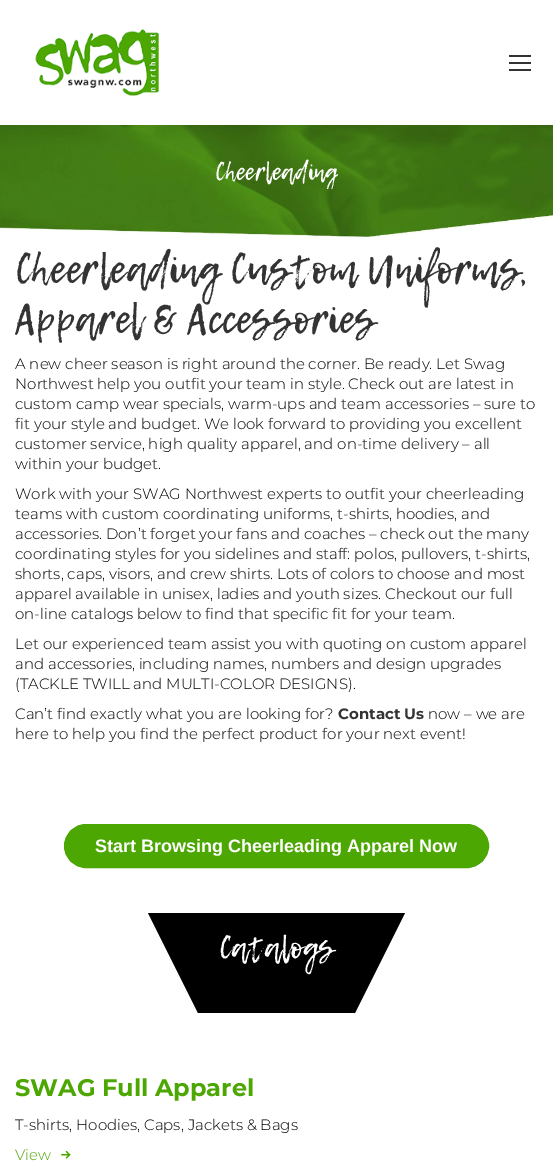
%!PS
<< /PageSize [553 1167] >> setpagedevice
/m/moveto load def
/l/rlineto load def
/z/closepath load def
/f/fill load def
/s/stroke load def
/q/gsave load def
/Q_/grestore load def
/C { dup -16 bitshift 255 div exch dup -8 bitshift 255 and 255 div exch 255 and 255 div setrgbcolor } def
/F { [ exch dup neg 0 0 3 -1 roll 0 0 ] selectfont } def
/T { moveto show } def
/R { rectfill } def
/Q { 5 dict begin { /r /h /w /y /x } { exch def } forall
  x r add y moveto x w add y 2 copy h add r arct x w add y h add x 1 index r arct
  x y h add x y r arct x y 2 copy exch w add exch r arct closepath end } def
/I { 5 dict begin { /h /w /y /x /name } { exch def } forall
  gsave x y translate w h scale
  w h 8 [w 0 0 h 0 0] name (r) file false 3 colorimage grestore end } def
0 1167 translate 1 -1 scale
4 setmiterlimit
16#FFFFFF C
0 0 553 1167 R
(1.rgb) 35 29 124 67 I
16#333333 C
509 55 22 2 R
509 62 22 2 R
509 69 22 2 R
(2.rgb) 0 125 553 144 I
q
215 155 123 34 rectclip
/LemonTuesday-Regular 24 F
16#FFFFFF C
(Cheerleading) 215 180 T
Q_
/LemonTuesday-Regular 40 F
(Cheerleading Custom Uniforms,) 15 283 T
(Apparel & Accessories) 15 333 T
/Montserrat-Thin 15 F
16#000000 C
(A new cheer season is right around the corner. Be ready. Let Swag) 15 369 T
(Northwest help you outfit your team in style. Check out are latest in) 15 389 T
(custom camp wear specials, warm-ups and team accessories – sure to) 15 409 T
(fit your style and budget. We look forward to providing you excellent) 15 429 T
(customer service, high quality apparel, and on-time delivery – all) 15 449 T
(within your budget.) 15 469 T
(Work with your SWAG Northwest experts to outfit your cheerleading) 15 499 T
(teams with custom coordinating uniforms, t-shirts, hoodies, and) 15 519 T
(accessories. Don’t forget your fans and coaches – check out the many) 15 539 T
(coordinating styles for you sidelines and staff: polos, pullovers, t-shirts,) 15 559 T
(shorts, caps, visors, and crew shirts. Lots of colors to choose and most) 15 579 T
(apparel available in unisex, ladies and youth sizes. Checkout our full) 15 599 T
(on-line catalogs below to find that specific fit for your team.) 15 619 T
(Let our experienced team assist you with quoting on custom apparel) 15 649 T
(and accessories, including names, numbers and design upgrades) 15 669 T
(\(TACKLE TWILL and MULTI-COLOR DESIGNS\).) 15 689 T
(Can’t find exactly what you are looking for?) 15 719 T
/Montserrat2-Thin 15 F
16#333333 C
(Contact Us) 338 719 T
/Montserrat-Thin 15 F
16#000000 C
(now – we are) 428 719 T
(here to help you find the perfect product for your next event!) 15 739 T
16#4CA702 C
64.5 824.5 424 43 21.5 Q q f Q_
s
/LiberationSans-Bold 18 F
16#FFFFFF C
(Start Browsing Cheerleading Apparel Now) 95 852 T
16#000000 C
148 913 m 257 0 l -50 100 l -157 0 l z f
/LemonTuesday-Regular 30 F
16#FFFFFF C
(Catalogs) 219 958 T
/Montserrat2-Thin 24 F
16#4CA702 C
(SWAG Full Apparel) 15 1096 T
/Montserrat-Thin 15 F
16#000000 C
(T-shirts, Hoodies, Caps, Jackets & Bags) 15 1130 T
16#4CA702 C
(View) 15 1160 T
(3.rgb) 61 1150 10 9 I
showpage
